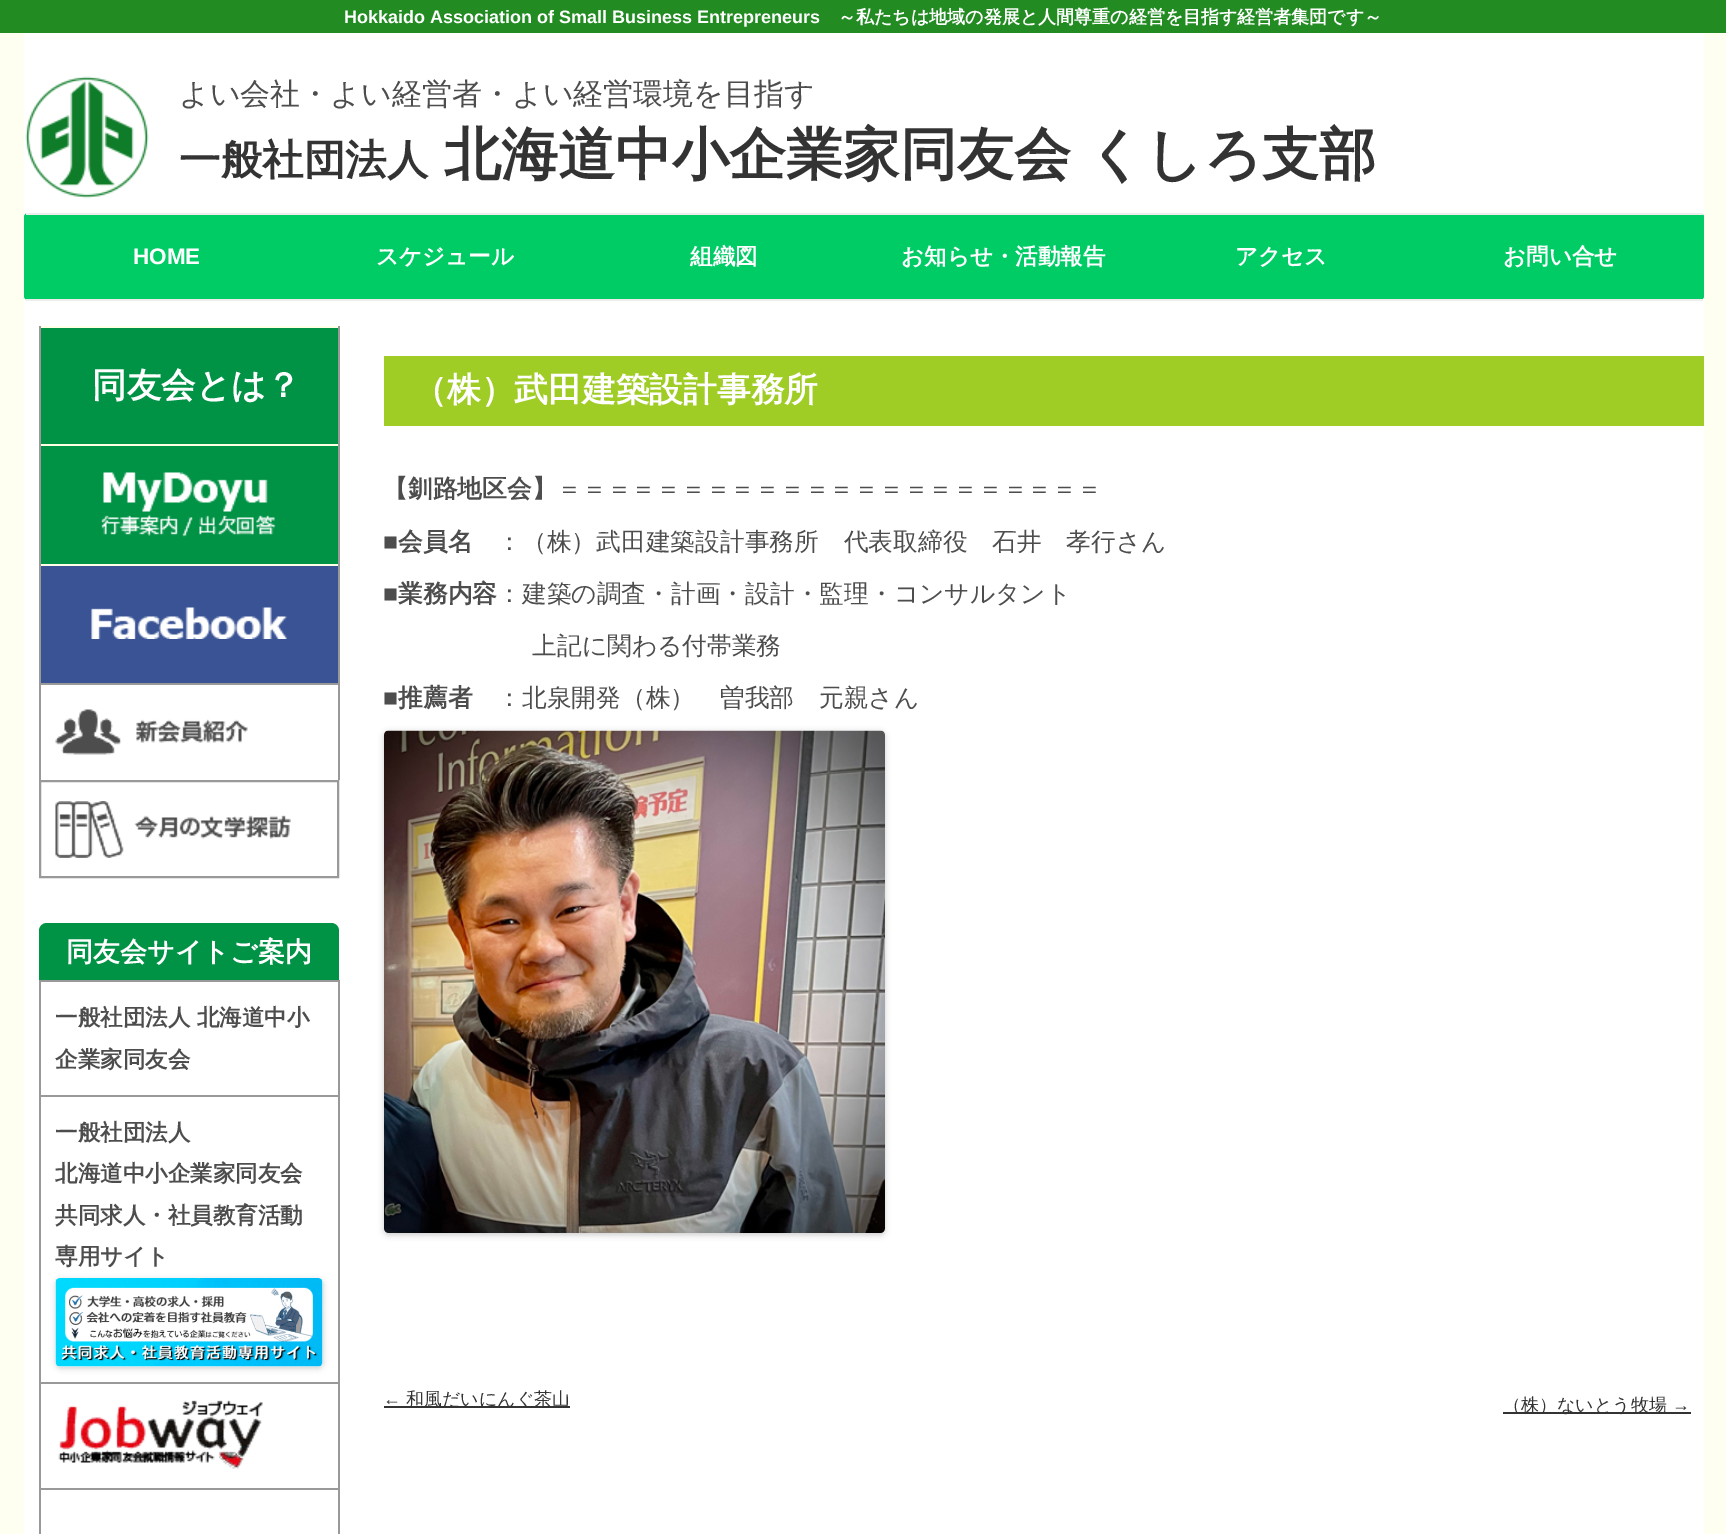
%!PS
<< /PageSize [1726 1534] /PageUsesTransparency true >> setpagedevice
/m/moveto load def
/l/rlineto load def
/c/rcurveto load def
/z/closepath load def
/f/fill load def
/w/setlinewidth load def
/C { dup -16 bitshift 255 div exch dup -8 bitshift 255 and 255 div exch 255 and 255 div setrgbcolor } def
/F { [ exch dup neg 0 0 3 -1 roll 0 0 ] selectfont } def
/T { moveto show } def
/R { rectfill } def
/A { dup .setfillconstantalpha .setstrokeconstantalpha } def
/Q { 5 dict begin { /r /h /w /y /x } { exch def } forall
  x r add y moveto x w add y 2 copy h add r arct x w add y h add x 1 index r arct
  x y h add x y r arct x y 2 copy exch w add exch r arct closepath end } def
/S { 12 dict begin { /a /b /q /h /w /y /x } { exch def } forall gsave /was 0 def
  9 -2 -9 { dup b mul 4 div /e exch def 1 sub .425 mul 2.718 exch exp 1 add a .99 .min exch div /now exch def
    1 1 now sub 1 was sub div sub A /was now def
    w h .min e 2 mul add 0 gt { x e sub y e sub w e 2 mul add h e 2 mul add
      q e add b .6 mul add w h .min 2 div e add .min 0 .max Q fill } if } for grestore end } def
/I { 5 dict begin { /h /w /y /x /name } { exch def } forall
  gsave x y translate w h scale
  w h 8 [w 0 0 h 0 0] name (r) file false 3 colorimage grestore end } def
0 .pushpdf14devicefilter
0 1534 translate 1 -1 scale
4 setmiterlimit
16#FFFFF1 C
0 0 1726 1534 R
16#228B22 C
0 0 1726 33 R
/LiberationSans-Bold 18 F
16#FFFFFF C
(Hokkaido Association of Small Business Entrepreneurs) 344 23 T
/WenQuanYiZenHei-Bold 18 F
(～私たちは地域の発展と人間尊重の経営を目指す経営者集団です～) 838 23 T
24 33 1680 1501 R
(1.rgb) 25 76 124 123 I
/WenQuanYiZenHei-Medium 30 F
16#4D4D4D C
(よい会社・よい経営者・よい経営環境を目指す) 179 104 T
/WenQuanYiZenHei-Bold 41.5 F
16#333333 C
(一般社団法人) 179 174 T
/WenQuanYiZenHei-Bold 57 F
444 174 m -1 0 32 (北海道中小企業家同友会 くしろ支部) widthshow
16#00CC66 C
24 213 1680 87 4 Q f
16#EDEDED C
26 213 1677 2 R
26 299 1677 2 R
/LiberationSans-Bold 22.5 F
16#FFFFFF C
(HOME) 133 264 T
/WenQuanYiZenHei-Bold 22.5 F
(スケジュール) 376 264 T
(組織図) 690 264 T
(お知らせ・活動報告) 901 264 T
(アクセス) 1235 264 T
(お問い合せ) 1503 264 T
16#009245 C
41 328 297 116 R
16#FFFFE6 C
39 326 300 2 R
16#999999 C
338 326 2 118 R
39 326 2 118 R
/WenQuanYiZenHei-Bold 34.5 F
16#FFFFFF C
(同友会とは？) 92 397 T
16#009245 C
41 446 297 118 R
(2.rgb) 101 472 175 65 I
16#FFFFE6 C
39 444 300 2 R
16#999999 C
338 444 2 120 R
39 444 2 120 R
16#395394 C
41 566 297 117 R
(3.rgb) 91 607 196 32 I
16#FFFFE6 C
39 564 300 2 R
16#999999 C
338 564 2 119 R
39 564 2 119 R
(4.rgb) 55 709 193 46 I
39 683 300 2 R
338 683 2 97 R
39 683 2 97 R
(5.rgb) 55 801 236 57 I
2 w
40 781 298 96 rectstroke
16#009245 C
47 923 m 284 0 l 4.5 0 8 3.5 8 8 c 0 49 l -300 0 l 0 -49 l 0 -4.5 3.5 -8 8 -8 c z f
/WenQuanYiZenHei-Bold 27 F
16#FFFFFF C
(同友会サイトご案内) 66 961 T
16#999999 C
39 980 300 2 R
338 980 2 115 R
39 980 2 115 R
/WenQuanYiZenHei-Bold 22.5 F
16#4D4D4D C
(一般社団法人 北海道中小) 55 1025 T
(企業家同友会) 55 1067 T
16#999999 C
39 1095 300 2 R
338 1095 2 287 R
39 1095 2 287 R
16#4D4D4D C
(一般社団法人) 55 1140 T
(北海道中小企業家同友会) 55 1181 T
(共同求人・社員教育活動) 55 1223 T
(専用サイト) 55 1264 T
16#000000 C
56 1280 267 88 5 3 .2 S
(6.rgb) 55 1278 268 89 I
(7.rgb) 58 1400 205 69 I
16#999999 C
39 1382 300 2 R
338 1382 2 106 R
39 1382 2 106 R
39 1488 300 2 R
338 1488 2 46 R
39 1488 2 46 R
16#9FCC25 C
384 356 1320 70 R
/WenQuanYiZenHei-Bold 33.75 F
16#FFFFFF C
(（株）武田建築設計事務所) 413 401 T
/WenQuanYiZenHei-Bold 24.75 F
16#4D4D4D C
(【釧路地区会】) 383 497 T
/WenQuanYiZenHei-Medium 24.75 F
(＝＝＝＝＝＝＝＝＝＝＝＝＝＝＝＝＝＝＝＝＝＝) 557 497 T
/LiberationSans-Bold 24.75 F
(■) 383 550 T
/WenQuanYiZenHei-Bold 24.75 F
(会員名) 398 550 T
/WenQuanYiZenHei-Medium 24.75 F
(：（株）武田建築設計事務所　代表取締役　石井　孝行さん) 497 550 T
/LiberationSans-Bold 24.75 F
(■) 383 602 T
/WenQuanYiZenHei-Bold 24.75 F
(業務内容) 398 602 T
/WenQuanYiZenHei-Medium 24.75 F
(：建築の調査・計画・設計・監理・コンサルタント) 497 602 T
(上記に関わる付帯業務) 532 654 T
/LiberationSans-Bold 24.75 F
(■) 383 706 T
/WenQuanYiZenHei-Bold 24.75 F
(推薦者) 398 706 T
/WenQuanYiZenHei-Medium 24.75 F
(：北泉開発（株）　曽我部　元親さん) 497 706 T
16#000000 C
384 732 501 503 5 3 .2 S
(8.rgb) 384 730 501 503 I
/LiberationSans-Regular 18 F
16#333333 C
(←) 383 1405 T
384 1406 186 2 R
/WenQuanYiZenHei-Medium 18 F
(和風だいにんぐ茶山) 406 1405 T
1503 1412 188 2 R
(（株）ないとう牧場) 1503 1411 T
/LiberationSans-Regular 18 F
(→) 1672 1411 T
.poppdf14devicefilter showpage
